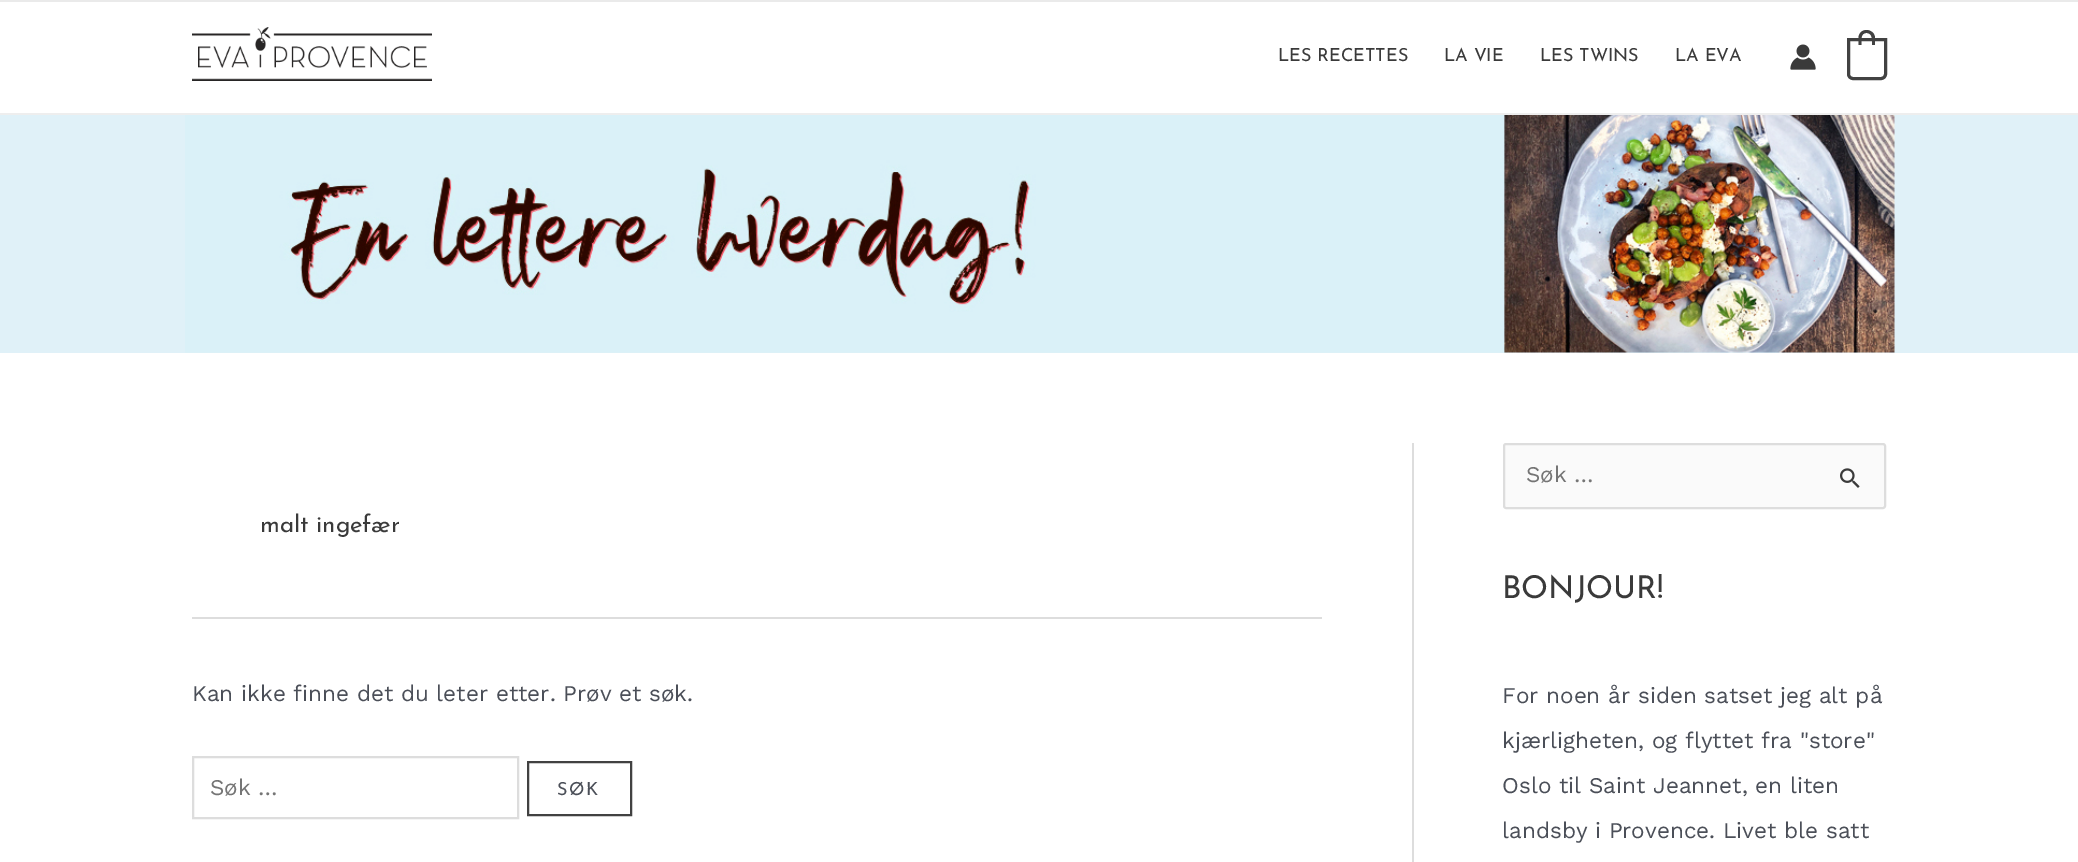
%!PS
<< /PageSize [2078 862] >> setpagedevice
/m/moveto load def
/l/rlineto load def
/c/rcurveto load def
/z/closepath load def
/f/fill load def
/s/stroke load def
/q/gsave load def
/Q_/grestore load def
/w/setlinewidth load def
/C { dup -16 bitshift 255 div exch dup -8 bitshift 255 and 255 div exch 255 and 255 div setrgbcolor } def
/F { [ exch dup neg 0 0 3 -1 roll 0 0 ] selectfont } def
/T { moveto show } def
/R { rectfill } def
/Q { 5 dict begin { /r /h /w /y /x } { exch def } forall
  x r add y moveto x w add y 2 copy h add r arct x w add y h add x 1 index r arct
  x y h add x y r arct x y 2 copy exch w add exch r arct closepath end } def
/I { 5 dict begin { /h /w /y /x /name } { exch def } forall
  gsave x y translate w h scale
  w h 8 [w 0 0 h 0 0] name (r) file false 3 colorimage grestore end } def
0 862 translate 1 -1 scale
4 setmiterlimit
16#FFFFFF C
0 0 2078 862 R
16#EAEAEA C
0 0 2078 2 R
16#EEEEEE C
0 113 2078 2 R
(1.rgb) 192 27 240 54 I
/JosefinSans-Thin 18 F
16#3A3A3A C
(LES RECETTES) 1278 61 T
(LA VIE) 1444 61 T
(LES TWINS) 1540 61 T
(LA EVA) 1675 61 T
(2.rgb) 1790 44 26 26 I
16#424242 C
3 w
1848.5 39.5 m 37 0 l 0 34.5 l 0 2.5 -2 4.5 -4.5 4.5 c -28 0 l -2.5 0 -4.5 -2 -4.5 -4.5 c z s
1866.5 30 m 4.5 0 8.5 3.5 8.5 8 c 0 7 l -16.5 0 l 0 -7 l 0 -4.5 3.5 -8 8 -8 c z 1866.5 33 m 6.5 0 5.5 7.5 5.5 12 c -10.5 0 l 0 -4.5 -1.5 -12 5 -12 c z eofill
16#E0F1F8 C
0 115 2078 238 R
(3.rgb) 185 115 1710 238 I
16#DDDDDD C
1412 443 2 419 R
192 617 1130 2 R
/JosefinSans-Thin 24 F
16#3A3A3A C
(malt ingefær) 260 532 T
/WorkSans-Regular 22.5 F
16#4B4F58 C
(Kan ikke finne det du leter etter. Prøv et søk.) 192 701 T
16#DDDDDD C
2 w
193 757 325 61 rectstroke
16#757575 C
(Søk …) 210 795 T
16#424242 C
528 762 103 53 rectstroke
/JosefinSans-Thin 18 F
16#4B4F58 C
557 795 m 1.5 0 (SØK) ashow
16#FAFAFA C
1504 444 381 64 2 Q q f Q_
16#DDDDDD C
s
/WorkSans-Regular 22.5 F
16#757575 C
(Søk …) 1526 482 T
(4.rgb) 1840 468 20 20 I
/JosefinSans-Thin 31.5 F
16#3A3A3A C
(BONJOUR!) 1502 598 T
/WorkSans-Regular 22.5 F
16#4B4F58 C
(For noen år siden satset jeg alt på) 1502 703 T
(kjærligheten, og flyttet fra "store") 1502 748 T
(Oslo til Saint Jeannet, en liten) 1502 793 T
(landsby i Provence. Livet ble satt) 1502 838 T
showpage
